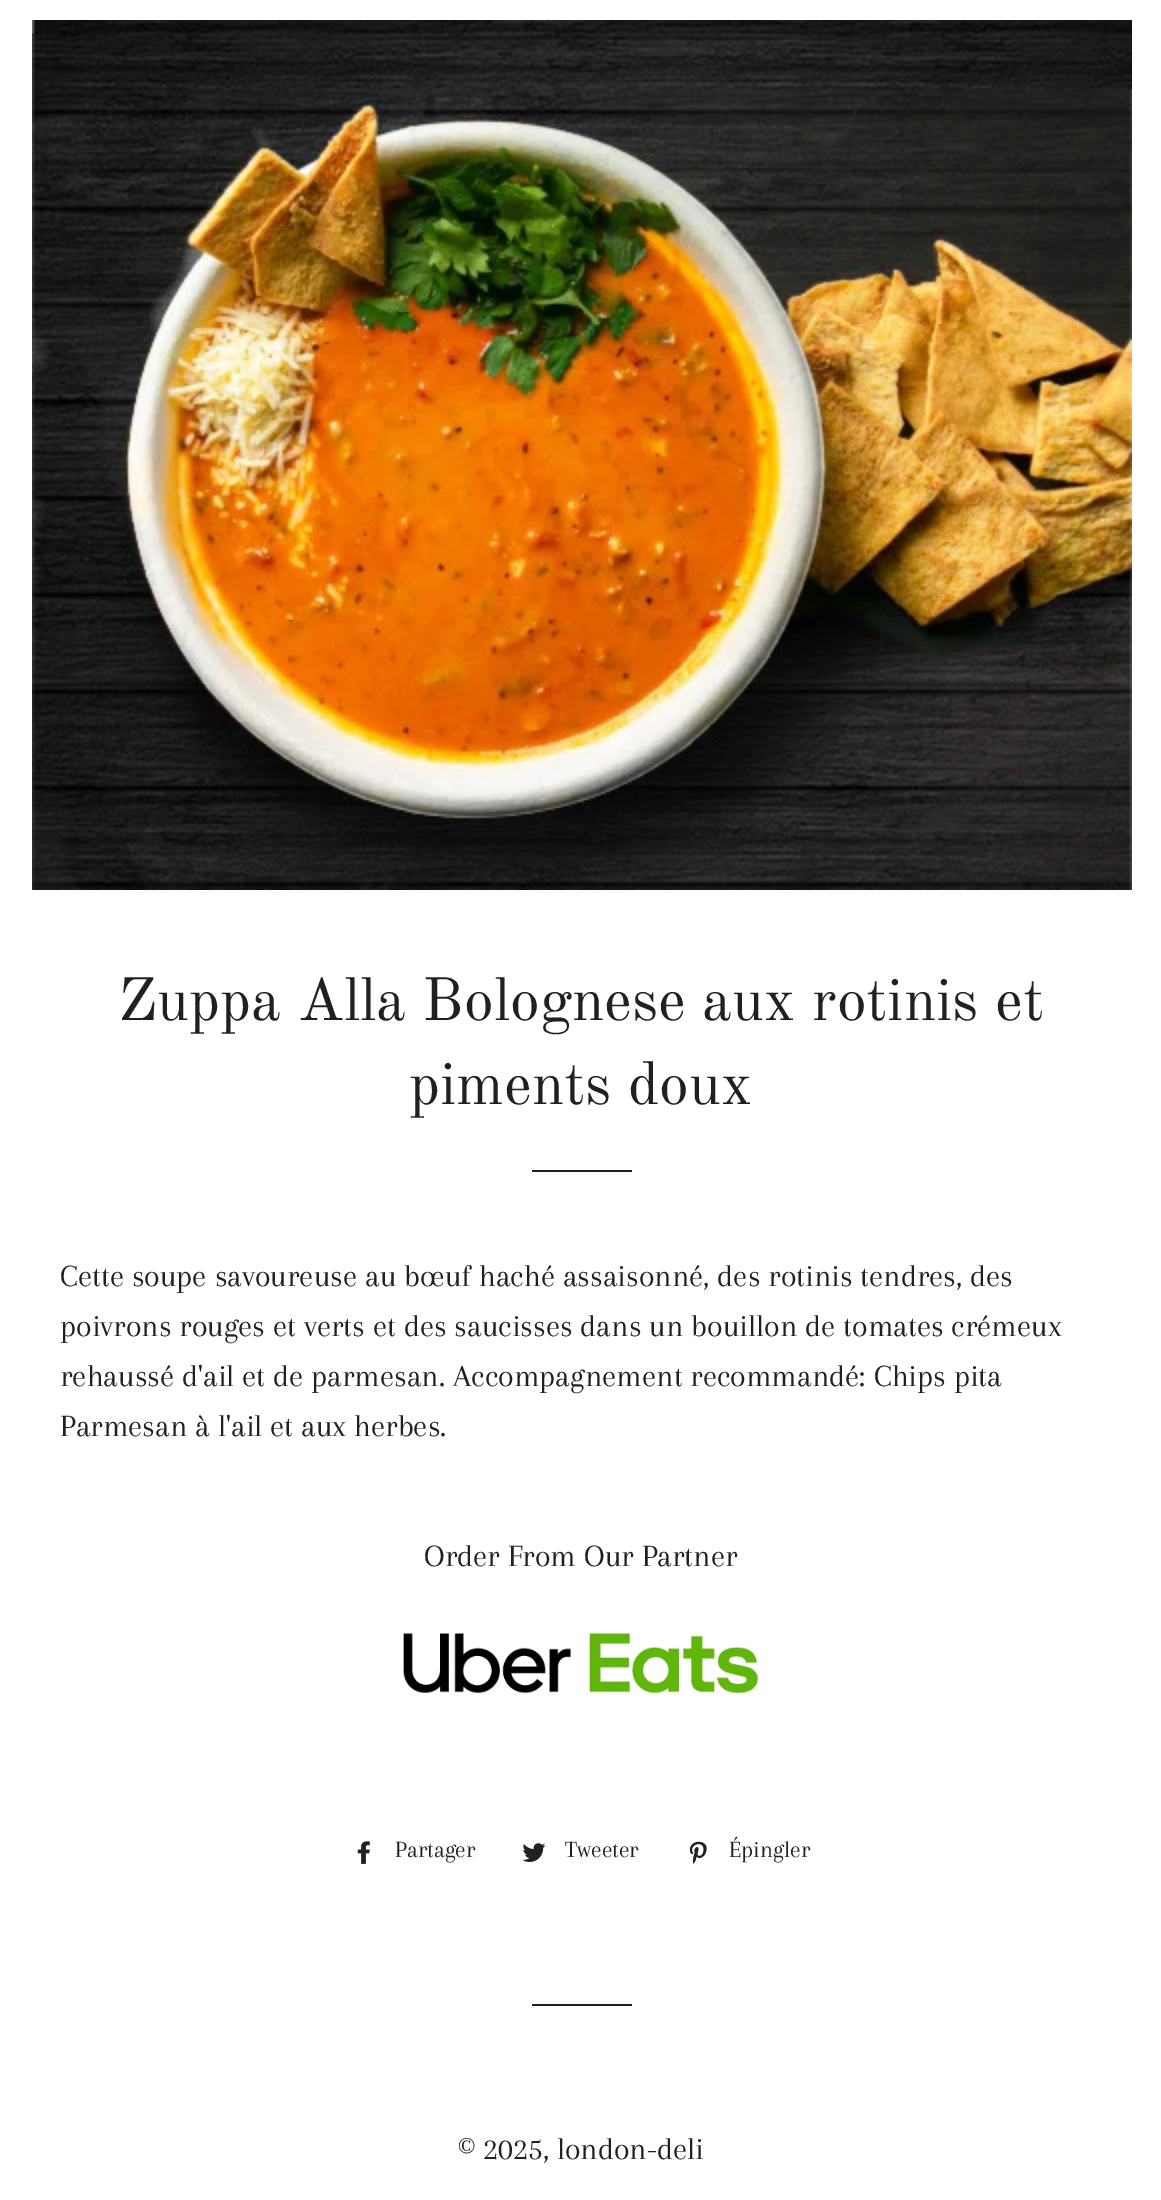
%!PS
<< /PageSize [1161 2200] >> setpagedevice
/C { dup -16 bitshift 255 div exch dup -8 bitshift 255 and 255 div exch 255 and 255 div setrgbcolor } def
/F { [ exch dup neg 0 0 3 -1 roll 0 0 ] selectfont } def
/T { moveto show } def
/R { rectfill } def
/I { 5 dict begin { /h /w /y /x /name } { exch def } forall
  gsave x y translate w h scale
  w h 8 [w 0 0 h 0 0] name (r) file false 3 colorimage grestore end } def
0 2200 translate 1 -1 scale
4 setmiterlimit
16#FFFFFF C
0 0 1161 2200 R
(1.rgb) 32 20 1100 870 I
/OldStandardTT-Regular 60 F
16#1F2021 C
(Zuppa Alla Bolognese aux rotinis et) 118 1020 T
(piments doux) 409 1104 T
532 1170 100 2 R
/Arapey-Regular 32 F
(Cette soupe savoureuse au bœuf haché assaisonné, des rotinis tendres, des) 60 1286 T
(poivrons rouges et verts et des saucisses dans un bouillon de tomates crémeux) 60 1336 T
(rehaussé d'ail et de parmesan. Accompagnement recommandé: Chips pita) 60 1386 T
(Parmesan à l'ail et aux herbes.) 60 1436 T
(Order From Our Partner) 424 1566 T
(2.rgb) 403 1632 356 62 I
(3.rgb) 357 1841 13 23 I
/Arapey-Regular 24 F
(Partager) 395 1857 T
(4.rgb) 522 1843 24 19 I
(Tweeter) 565 1857 T
(5.rgb) 689 1841 18 23 I
(Épingler) 729 1857 T
532 2004 100 2 R
/Arapey-Regular 32 F
(© 2025, london-deli) 458 2159 T
showpage
